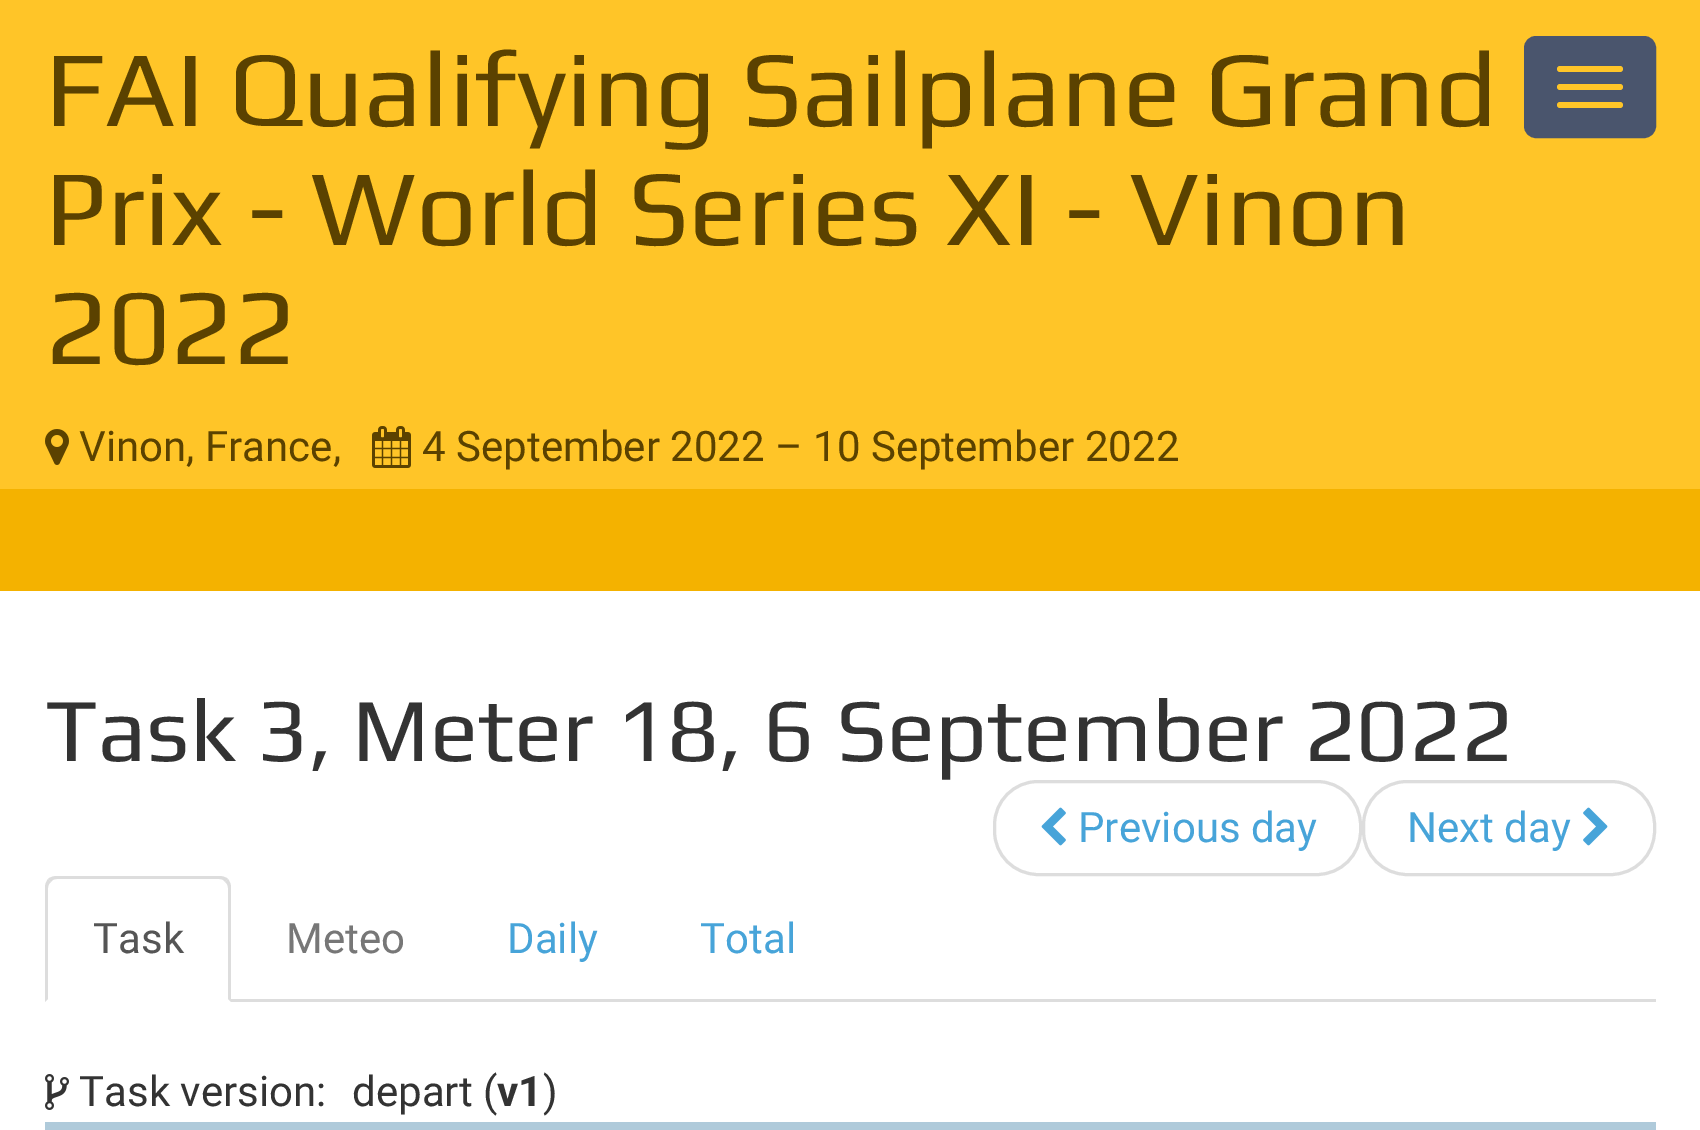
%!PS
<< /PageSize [1700 1130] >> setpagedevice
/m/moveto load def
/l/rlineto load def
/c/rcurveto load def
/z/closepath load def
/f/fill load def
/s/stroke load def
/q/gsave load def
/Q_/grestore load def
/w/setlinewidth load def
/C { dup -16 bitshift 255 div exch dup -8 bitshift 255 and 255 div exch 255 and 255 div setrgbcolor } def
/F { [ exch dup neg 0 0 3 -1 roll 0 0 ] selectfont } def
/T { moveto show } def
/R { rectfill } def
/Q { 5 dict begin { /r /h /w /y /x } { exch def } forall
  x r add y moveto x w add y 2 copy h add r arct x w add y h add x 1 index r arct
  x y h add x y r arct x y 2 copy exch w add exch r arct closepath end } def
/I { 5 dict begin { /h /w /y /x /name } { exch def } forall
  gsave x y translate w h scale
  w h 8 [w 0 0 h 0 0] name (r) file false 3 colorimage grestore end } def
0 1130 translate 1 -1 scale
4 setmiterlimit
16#FFFFFF C
0 0 1700 1130 R
16#FFC528 C
0 0 1700 489 R
/Play-Regular 108 F
16#5B4200 C
(FAI Qualifying Sailplane Grand) 45 126 T
(Prix - World Series XI - Vinon) 45 245 T
(2022) 45 364 T
16#4A556D C
1525.5 37.5 129 99 10.5 Q q f Q_
3 w
s
16#FFC528 C
1557 66 66 6 3 Q f
1557 84 66 6 3 Q f
1557 102 66 6 3 Q f
(1.rgb) 45 429 24 36 I
/Roboto-Regular 42 F
16#5B4200 C
(Vinon, France,) 79 461 T
(2.rgb) 372 426 39 42 I
(4 September 2022 – 10 September 2022) 422 461 T
16#F4B200 C
0 489 1700 102 R
/Play-Regular 90 F
16#333333 C
(Task 3, Meter 18, 6 September 2022) 45 761 T
16#DDDDDD C
994.5 781.5 366 93 43.5 Q s
(3.rgb) 1041 807 25 39 I
/Roboto-Regular 42 F
16#47A4D9 C
(Previous day) 1078 842 T
16#DDDDDD C
1363.5 781.5 291 93 43.5 Q s
16#47A4D9 C
(Next day) 1407 842 T
(4.rgb) 1583 807 25 39 I
16#DDDDDD C
231 999 1425 3 R
57 876 m -3 0 -7 1 -9 3 c 3 3 l 1 -2 3 -3 6 -3 c 162 0 l 3 0 5 1 6 3 c 3 -3 l -2 -2 -6 -3 -9 -3 c z f
231 1002 m 0 -114 l 0 -4 -1 -6 -3 -9 c -3 3 l 2 1 3 4 3 6 c 0 111 l z f
45 1002 m 3 -3 l 0 -111 l 0 -2 1 -5 3 -6 c -3 -3 l -2 3 -3 5 -3 9 c z f
16#555555 C
(Task) 93 953 T
16#777777 C
(Meteo) 286 953 T
16#47A4D9 C
(Daily) 507 953 T
(Total) 700 953 T
(5.rgb) 45 1074 24 36 I
16#333333 C
(Task version:) 79 1106 T
(depart \() 352 1106 T
/Roboto-Bold 42 F
(v1) 497 1106 T
/Roboto-Regular 42 F
(\)) 543 1106 T
16#AFCADA C
45 1122 1611 8 R
showpage
